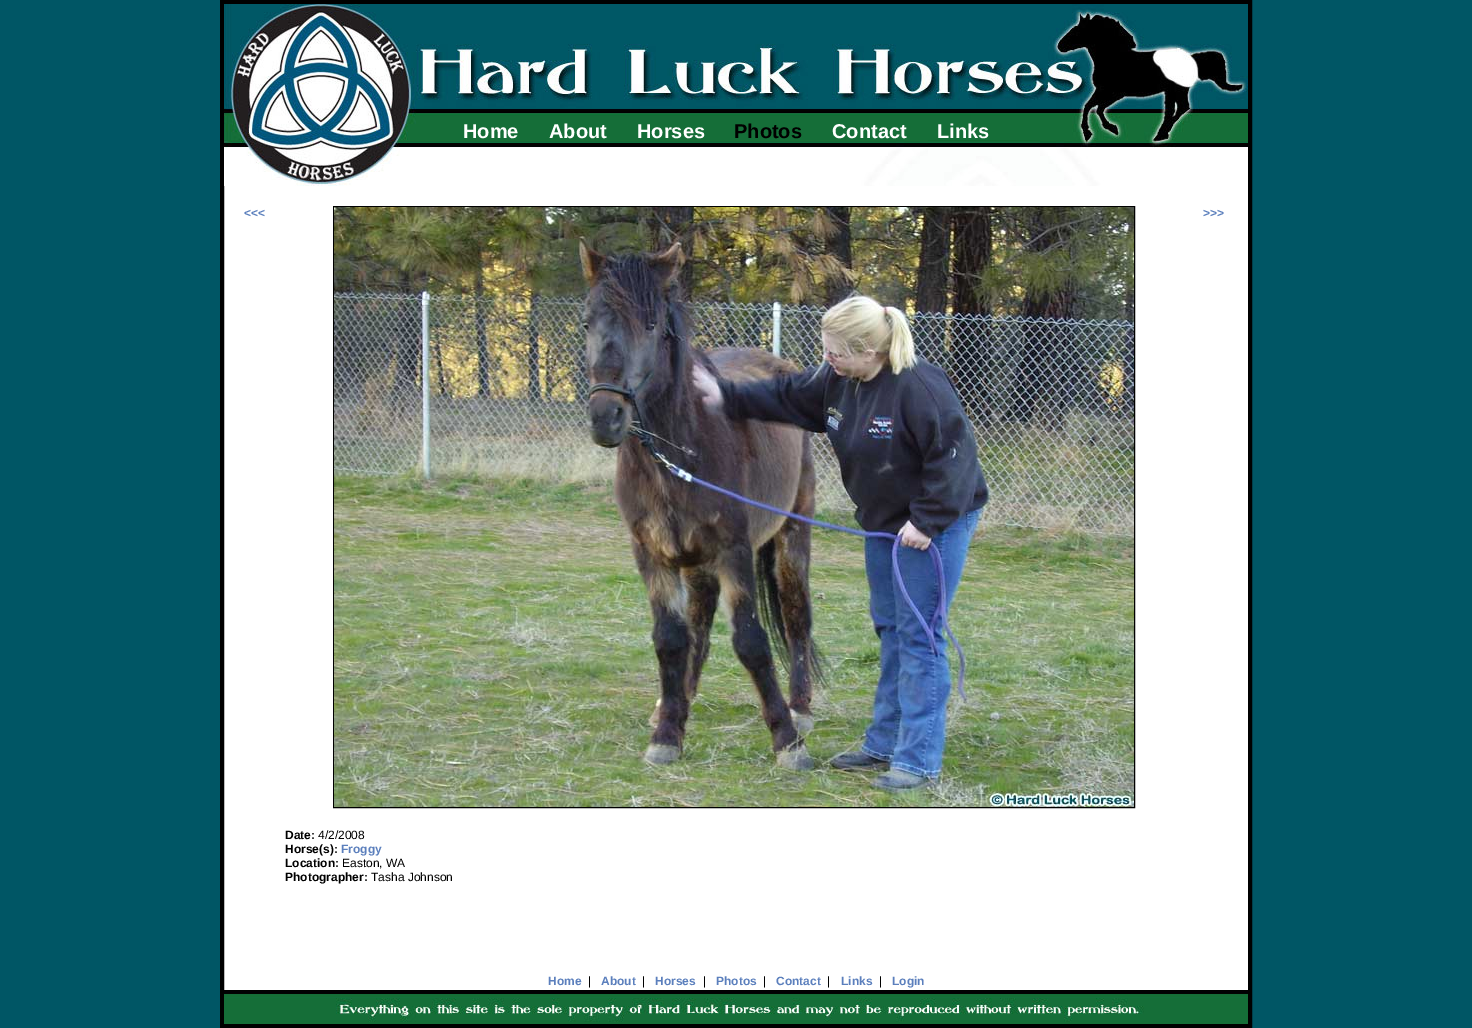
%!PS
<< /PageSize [1472 1028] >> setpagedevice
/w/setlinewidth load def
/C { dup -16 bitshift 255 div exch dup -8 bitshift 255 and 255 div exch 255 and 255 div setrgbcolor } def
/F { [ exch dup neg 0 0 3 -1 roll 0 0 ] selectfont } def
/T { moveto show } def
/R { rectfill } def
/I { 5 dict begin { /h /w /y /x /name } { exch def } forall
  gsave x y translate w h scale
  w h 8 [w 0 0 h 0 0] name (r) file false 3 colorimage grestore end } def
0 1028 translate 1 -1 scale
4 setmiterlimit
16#005665 C
0 0 1472 1028 R
16#FFFFFF C
224 186 1024 804 R
16#000000 C
4 w
222 2 1028 1024 rectstroke
(1.rgb) 224 4 1024 182 I
/LiberationSans-Bold 20 F
16#FFFFFF C
(Home) 463 138 T
(About) 549 138 T
(Horses) 637 138 T
16#000000 C
(Photos) 734 138 T
16#FFFFFF C
(Contact) 832 138 T
(Links) 937 138 T
/LiberationSans-Bold 12 F
16#5B7FBD C
(<<<) 244 217 T
16#000000 C
1 w
333.5 206.5 801 601 rectstroke
(2.rgb) 334 207 800 600 I
16#5B7FBD C
(>>>) 1203 217 T
16#000000 C
(Date:) 285 839 T
/LiberationSans-Regular 12 F
(4/2/2008) 318 839 T
/LiberationSans-Bold 12 F
(Horse\(s\):) 285 853 T
16#5B7FBD C
(Froggy) 341 853 T
16#000000 C
(Location:) 285 867 T
/LiberationSans-Regular 12 F
(Easton, WA) 342 867 T
/LiberationSans-Bold 12 F
(Photographer:) 285 881 T
/LiberationSans-Regular 12 F
(Tasha Johnson) 371 881 T
/LiberationSans-Bold 12 F
16#5B7FBD C
(Home) 548 985 T
/LiberationSans-Regular 12 F
16#000000 C
(|) 588 985 T
/LiberationSans-Bold 12 F
16#5B7FBD C
(About) 601 985 T
/LiberationSans-Regular 12 F
16#000000 C
(|) 642 985 T
/LiberationSans-Bold 12 F
16#5B7FBD C
(Horses) 655 985 T
/LiberationSans-Regular 12 F
16#000000 C
(|) 703 985 T
/LiberationSans-Bold 12 F
16#5B7FBD C
(Photos) 716 985 T
/LiberationSans-Regular 12 F
16#000000 C
(|) 763 985 T
/LiberationSans-Bold 12 F
16#5B7FBD C
(Contact) 776 985 T
/LiberationSans-Regular 12 F
16#000000 C
(|) 827 985 T
/LiberationSans-Bold 12 F
16#5B7FBD C
(Links) 841 985 T
/LiberationSans-Regular 12 F
16#000000 C
(|) 879 985 T
/LiberationSans-Bold 12 F
16#5B7FBD C
(Login) 892 985 T
(3.rgb) 224 990 1024 34 I
showpage
